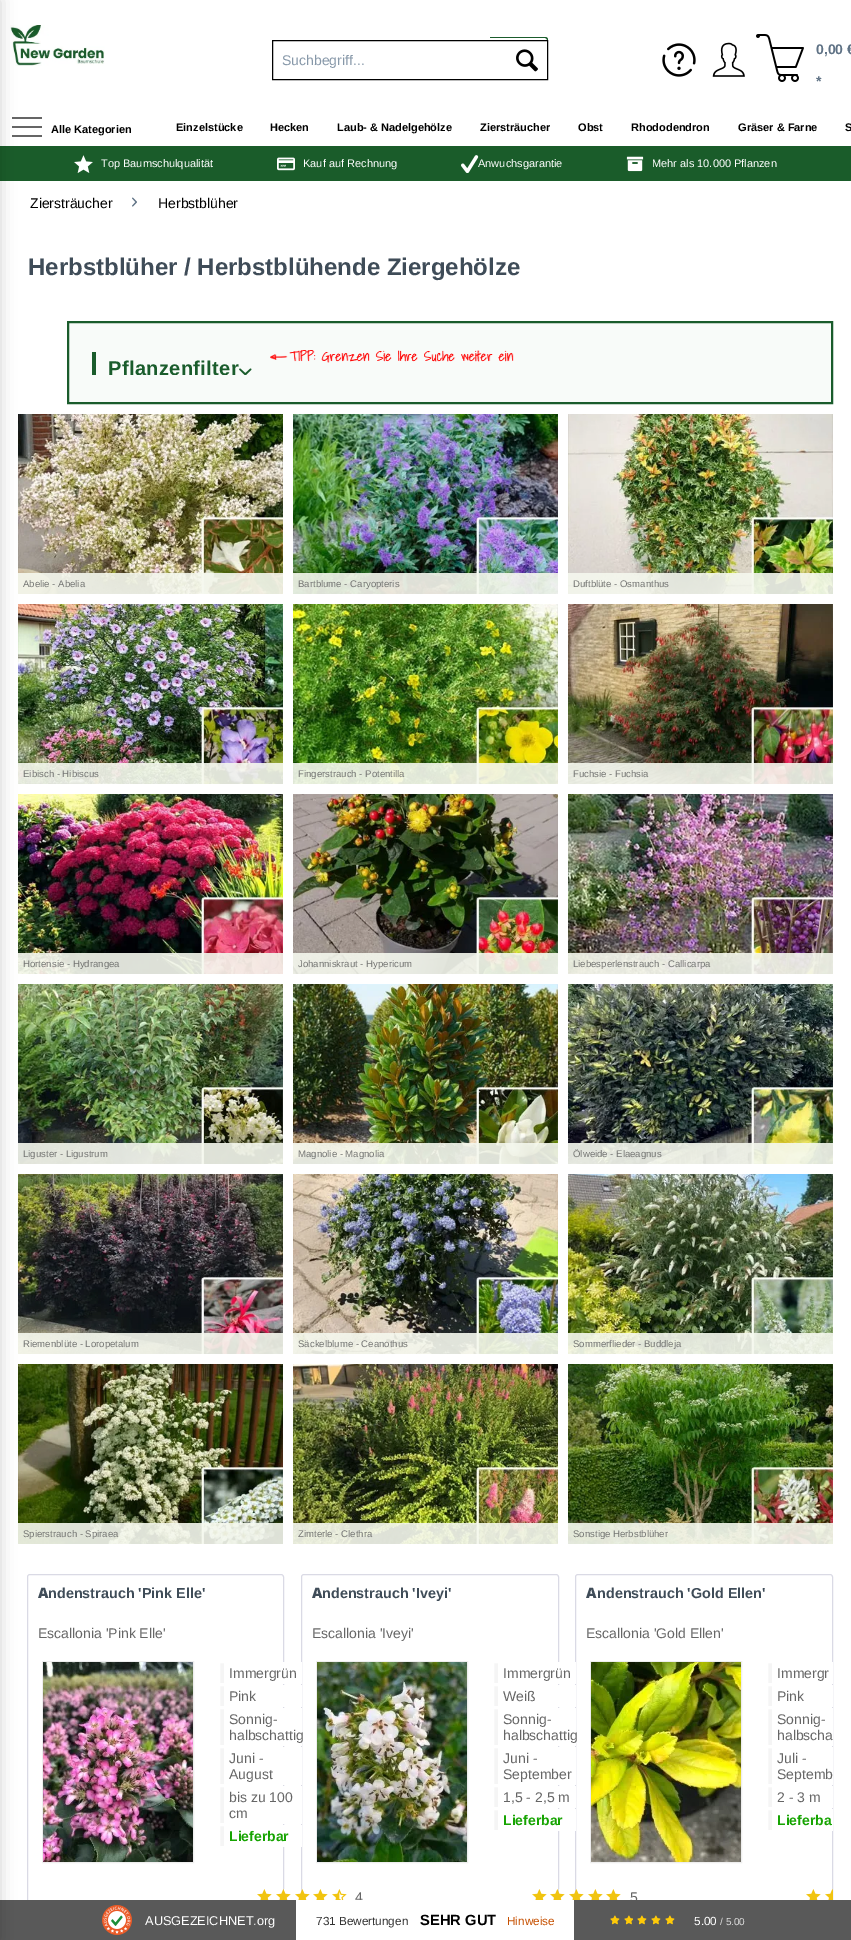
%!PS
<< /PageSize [851 1940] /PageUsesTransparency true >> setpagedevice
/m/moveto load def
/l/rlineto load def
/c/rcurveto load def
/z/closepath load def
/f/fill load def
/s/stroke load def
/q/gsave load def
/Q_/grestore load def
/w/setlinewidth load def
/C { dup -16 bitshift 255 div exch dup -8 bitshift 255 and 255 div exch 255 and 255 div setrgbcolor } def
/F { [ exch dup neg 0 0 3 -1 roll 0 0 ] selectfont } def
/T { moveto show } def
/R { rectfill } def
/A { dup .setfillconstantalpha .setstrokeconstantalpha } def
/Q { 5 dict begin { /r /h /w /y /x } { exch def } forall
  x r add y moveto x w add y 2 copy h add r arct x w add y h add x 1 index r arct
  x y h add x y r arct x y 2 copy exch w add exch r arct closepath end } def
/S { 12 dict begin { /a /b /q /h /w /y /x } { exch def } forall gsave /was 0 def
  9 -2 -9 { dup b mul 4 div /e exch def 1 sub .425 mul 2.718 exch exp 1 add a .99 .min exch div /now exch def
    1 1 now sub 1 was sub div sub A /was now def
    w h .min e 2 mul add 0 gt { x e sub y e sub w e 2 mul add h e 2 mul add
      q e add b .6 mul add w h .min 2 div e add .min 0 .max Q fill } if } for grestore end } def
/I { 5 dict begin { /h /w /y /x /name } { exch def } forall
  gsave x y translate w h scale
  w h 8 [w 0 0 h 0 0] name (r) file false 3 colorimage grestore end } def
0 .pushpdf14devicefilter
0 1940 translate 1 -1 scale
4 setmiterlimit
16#FFFFFF C
0 0 851 1940 R
(1.rgb) 10 25 95 41 I
16#1A5C2C C
490 37 m 55 0 l 2 0 3 1 3 3 c 0 32 l 0 2 -1 3 -3 3 c -55 0 l z 490 38 m 55 0 l 1 0 2 1 2 2 c 0 32 l 0 1 -1 2 -2 2 c -55 0 l z eofill
16#FFFFFF C
490 72 57 3 R
16#000000 C
272.5 40.5 275 39 rectstroke
/LiberationSans-Regular 14 F
16#8798A9 C
(Suchbegriff...) 282 65 T
(2.rgb) 516 49 22 23 I
(3.rgb) 662 43 34 34 I
(4.rgb) 712 42 33 35 I
(5.rgb) 756 34 48 48 I
/LiberationSans-Bold 14 F
16#5F7285 C
(0,00 €) 816 54 T
(*) 816 86 T
(6.rgb) 12 117 30 20 I
/LiberationSans-Bold 11 F
16#000000 C
(Alle Kategorien) 51 133 T
(Einzelstücke) 176 131 T
(Hecken) 270 131 T
(Laub- & Nadelgehölze) 337 131 T
(Ziersträucher) 480 131 T
(Obst) 578 131 T
(Rhododendron) 631 131 T
(Gräser & Farne) 738 131 T
(S) 845 131 T
16#1A5C2A C
0 146 851 35 R
(7.rgb) 74 155 19 18 I
/LiberationSans-Regular 11 F
16#FFFFFF C
(Top Baumschulqualität) 101 167 T
(8.rgb) 277 157 18 14 I
(Kauf auf Rechnung) 303 167 T
(9.rgb) 461 155 18 18 I
(Anwuchsgarantie) 478 167 T
(10.rgb) 626 156 18 16 I
(Mehr als 10.000 Pflanzen) 652 167 T
/LiberationSans-Regular 14 F
16#000000 C
(Ziersträucher) 30 208 T
(11.rgb) 132 197 5 10 I
(Herbstblüher) 158 208 T
(14.rgb) 18 414 265 180 I
0.9 A
16#F5F8EE C
18 573 265 21 R
1 A
(17.rgb) 18 604 265 180 I
0.9 A
18 763 265 21 R
1 A
(20.rgb) 18 794 265 180 I
0.9 A
18 953 265 21 R
1 A
(23.rgb) 18 984 265 180 I
0.9 A
18 1143 265 21 R
1 A
(26.rgb) 18 1174 265 180 I
0.9 A
18 1333 265 21 R
1 A
(29.rgb) 18 1364 265 180 I
0.9 A
18 1523 265 21 R
1 A
16#DADAE5 C
27.5 1574.5 256 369 2.5 Q s
301.5 1574.5 257 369 2.5 Q s
16#666666 C
(4) 355 1902 T
16#DADAE5 C
575.5 1574.5 257 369 2.5 Q s
16#666666 C
(5) 630 1902 T
16#595959 C
0 1900 851 40 R
16#000000 C
-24 0 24 1940 0 8 .18 S
/LiberationSans-Bold 24 F
16#3F4C58 C
(Herbstblüher / Herbstblühende Ziergehölze) 28 275 T
16#F8FBF9 C
68 322 m 764 0 l 0 81 l -764 0 l z q f Q_
16#1A5C2C C
2 w
s
(12.rgb) 270 350 244 13 I
92 352 4 23 R
q
70 350 745 25 rectclip
/LiberationSans-Bold 20 F
108 375 m .4 0 (Pflanzenfilter) ashow
Q_
(13.rgb) 239 368 13 7 I
/LiberationSans-Regular 9.6 F
16#737472 C
(Abelie - Abelia) 23 587 T
(15.rgb) 293 414 265 180 I
0.9 A
16#F5F8EE C
293 573 265 21 R
1 A
16#737472 C
(Bartblume - Caryopteris) 298 587 T
(16.rgb) 568 414 265 180 I
0.9 A
16#F5F8EE C
568 573 265 21 R
1 A
16#737472 C
(Duftblüte - Osmanthus) 573 587 T
(Eibisch - Hibiscus) 23 777 T
(18.rgb) 293 604 265 180 I
0.9 A
16#F5F8EE C
293 763 265 21 R
1 A
16#737472 C
(Fingerstrauch - Potentilla) 298 777 T
(19.rgb) 568 604 265 180 I
0.9 A
16#F5F8EE C
568 763 265 21 R
1 A
16#737472 C
(Fuchsie - Fuchsia) 573 777 T
(Hortensie - Hydrangea) 23 967 T
(21.rgb) 293 794 265 180 I
0.9 A
16#F5F8EE C
293 953 265 21 R
1 A
16#737472 C
(Johanniskraut - Hypericum) 298 967 T
(22.rgb) 568 794 265 180 I
0.9 A
16#F5F8EE C
568 953 265 21 R
1 A
16#737472 C
(Liebesperlenstrauch - Callicarpa) 573 967 T
(Liguster - Ligustrum) 23 1157 T
(24.rgb) 293 984 265 180 I
0.9 A
16#F5F8EE C
293 1143 265 21 R
1 A
16#737472 C
(Magnolie - Magnolia) 298 1157 T
(25.rgb) 568 984 265 180 I
0.9 A
16#F5F8EE C
568 1143 265 21 R
1 A
16#737472 C
(Ölweide - Elaeagnus) 573 1157 T
(Riemenblüte - Loropetalum) 23 1347 T
(27.rgb) 293 1174 265 180 I
0.9 A
16#F5F8EE C
293 1333 265 21 R
1 A
16#737472 C
(Säckelblume - Ceanothus) 298 1347 T
(28.rgb) 568 1174 265 180 I
0.9 A
16#F5F8EE C
568 1333 265 21 R
1 A
16#737472 C
(Sommerflieder - Buddleja) 573 1347 T
(Spierstrauch - Spiraea) 23 1537 T
(30.rgb) 293 1364 265 180 I
0.9 A
16#F5F8EE C
293 1523 265 21 R
1 A
16#737472 C
(Zimterle - Clethra) 298 1537 T
(31.rgb) 568 1364 265 180 I
0.9 A
16#F5F8EE C
568 1523 265 21 R
1 A
16#737472 C
(Sonstige Herbstblüher) 573 1537 T
/NotoSans-Black 14.4 F
16#3F4C58 C
(A) 38 1598 T
/LiberationSans-Bold 14.4 F
(ndenstrauch 'Pink Elle') 48 1598 T
/LiberationSans-Regular 14 F
16#666666 C
(Escallonia 'Pink Elle') 38 1638 T
16#EEEEEE C
1 w
42.5 1661.5 151 201 rectstroke
(32.rgb) 43 1662 150 200 I
16#F5F5F5 C
219.5 1662.5 m 5 0 l 0 21 l -5 0 l z q f Q_
16#FFFFFF C
s
283 1662 19 22 R
16#666666 C
(Immergrün) 229 1678 T
16#F5F5F5 C
219.5 1685.5 m 5 0 l 0 21 l -5 0 l z q f Q_
16#FFFFFF C
s
283 1685 19 22 R
16#666666 C
(Pink) 229 1701 T
16#F5F5F5 C
219.5 1708.5 m 5 0 l 0 37 l -5 0 l z q f Q_
16#FFFFFF C
s
283 1708 19 38 R
16#666666 C
(Sonnig-) 229 1724 T
(halbschattig) 229 1740 T
16#F5F5F5 C
219.5 1747.5 m 5 0 l 0 37 l -5 0 l z q f Q_
16#FFFFFF C
s
283 1747 19 38 R
16#666666 C
(Juni -) 229 1763 T
(August) 229 1779 T
16#F5F5F5 C
219.5 1786.5 m 5 0 l 0 37 l -5 0 l z q f Q_
16#FFFFFF C
s
283 1786 19 38 R
16#666666 C
(bis zu 100) 229 1802 T
(cm) 229 1818 T
16#F5F5F5 C
219.5 1825.5 m 5 0 l 0 21 l -5 0 l z q f Q_
16#FFFFFF C
s
283 1825 19 22 R
/LiberationSans-Bold 14 F
16#17A402 C
(Lieferbar) 229 1841 T
(33.rgb) 257 1889 15 11 I
(34.rgb) 276 1889 15 11 I
(35.rgb) 295 1889 15 11 I
(33.rgb) 313 1889 15 11 I
(36.rgb) 332 1889 15 11 I
/NotoSans-Black 14.4 F
16#3F4C58 C
(A) 312 1598 T
/LiberationSans-Bold 14.4 F
(ndenstrauch 'Iveyi') 322 1598 T
/LiberationSans-Regular 14 F
16#666666 C
(Escallonia 'Iveyi') 312 1638 T
16#EEEEEE C
316.5 1661.5 151 201 rectstroke
(37.rgb) 317 1662 150 200 I
16#F5F5F5 C
493.5 1662.5 m 5 0 l 0 21 l -5 0 l z q f Q_
16#FFFFFF C
s
558 1662 18 22 R
16#666666 C
(Immergrün) 503 1678 T
16#F5F5F5 C
493.5 1685.5 m 5 0 l 0 21 l -5 0 l z q f Q_
16#FFFFFF C
s
558 1685 18 22 R
16#666666 C
(Weiß) 503 1701 T
16#F5F5F5 C
493.5 1708.5 m 5 0 l 0 37 l -5 0 l z q f Q_
16#FFFFFF C
s
558 1708 18 38 R
16#666666 C
(Sonnig-) 503 1724 T
(halbschattig) 503 1740 T
16#F5F5F5 C
493.5 1747.5 m 5 0 l 0 37 l -5 0 l z q f Q_
16#FFFFFF C
s
558 1747 18 38 R
16#666666 C
(Juni -) 503 1763 T
(September) 503 1779 T
16#F5F5F5 C
493.5 1786.5 m 5 0 l 0 21 l -5 0 l z q f Q_
16#FFFFFF C
s
558 1786 18 22 R
16#666666 C
(1,5 - 2,5 m) 503 1802 T
16#F5F5F5 C
493.5 1809.5 m 5 0 l 0 21 l -5 0 l z q f Q_
16#FFFFFF C
s
558 1809 18 22 R
/LiberationSans-Bold 14 F
16#17A402 C
(Lieferbar) 503 1825 T
(33.rgb) 532 1889 15 11 I
(38.rgb) 550 1889 15 11 I
(35.rgb) 569 1889 15 11 I
(33.rgb) 588 1889 15 11 I
(33.rgb) 606 1889 15 11 I
/NotoSans-Black 14.4 F
16#3F4C58 C
(A) 586 1598 T
/LiberationSans-Bold 14.4 F
(ndenstrauch 'Gold Ellen') 597 1598 T
/LiberationSans-Regular 14 F
16#666666 C
(Escallonia 'Gold Ellen') 586 1638 T
16#EEEEEE C
590.5 1661.5 151 201 rectstroke
(39.rgb) 591 1662 150 200 I
16#F5F5F5 C
767.5 1662.5 m 5 0 l 0 21 l -5 0 l z q f Q_
16#FFFFFF C
s
832 1662 1 22 R
16#666666 C
(Immergr) 777 1678 T
16#F5F5F5 C
767.5 1685.5 m 5 0 l 0 21 l -5 0 l z q f Q_
16#FFFFFF C
s
832 1685 1 22 R
16#666666 C
(Pink) 777 1701 T
16#F5F5F5 C
767.5 1708.5 m 5 0 l 0 37 l -5 0 l z q f Q_
16#FFFFFF C
s
832 1708 1 38 R
16#666666 C
(Sonnig-) 777 1724 T
(halbscha) 777 1740 T
16#F5F5F5 C
767.5 1747.5 m 5 0 l 0 37 l -5 0 l z q f Q_
16#FFFFFF C
s
832 1747 1 38 R
16#666666 C
(Juli -) 777 1763 T
(Septemb) 777 1779 T
16#F5F5F5 C
767.5 1786.5 m 5 0 l 0 21 l -5 0 l z q f Q_
16#FFFFFF C
s
832 1786 1 22 R
16#666666 C
(2 - 3 m) 777 1802 T
16#F5F5F5 C
767.5 1809.5 m 5 0 l 0 21 l -5 0 l z q f Q_
16#FFFFFF C
s
832 1809 1 22 R
/LiberationSans-Bold 14 F
16#17A402 C
(Lieferba) 777 1825 T
(33.rgb) 806 1889 15 11 I
(40.rgb) 825 1889 8 11 I
(41.rgb) 102 1905 30 30 I
/LiberationSans-Regular 12.75 F
16#FFFFFF C
(AUSGEZEICHNET.org) 145 1925 T
296 1900 278 40 R
/LiberationSans-Regular 11.75 F
16#333333 C
(731 Bewertungen) 316 1925 T
/LiberationSans-Bold 14.75 F
16#000000 C
(SEHR GUT) 420 1925 T
/LiberationSans-Regular 11.75 F
16#C65102 C
(Hinweise) 507 1925 T
(42.rgb) 610 1915 10 10 I
(43.rgb) 624 1915 9 10 I
(42.rgb) 637 1915 10 10 I
(42.rgb) 651 1915 10 10 I
(42.rgb) 665 1915 10 10 I
16#FFFFFF C
(5.00) 694 1925 T
/LiberationSans-Regular 10 F
16#DEDEDE C
(/ 5.00) 720 1925 T
.poppdf14devicefilter showpage
